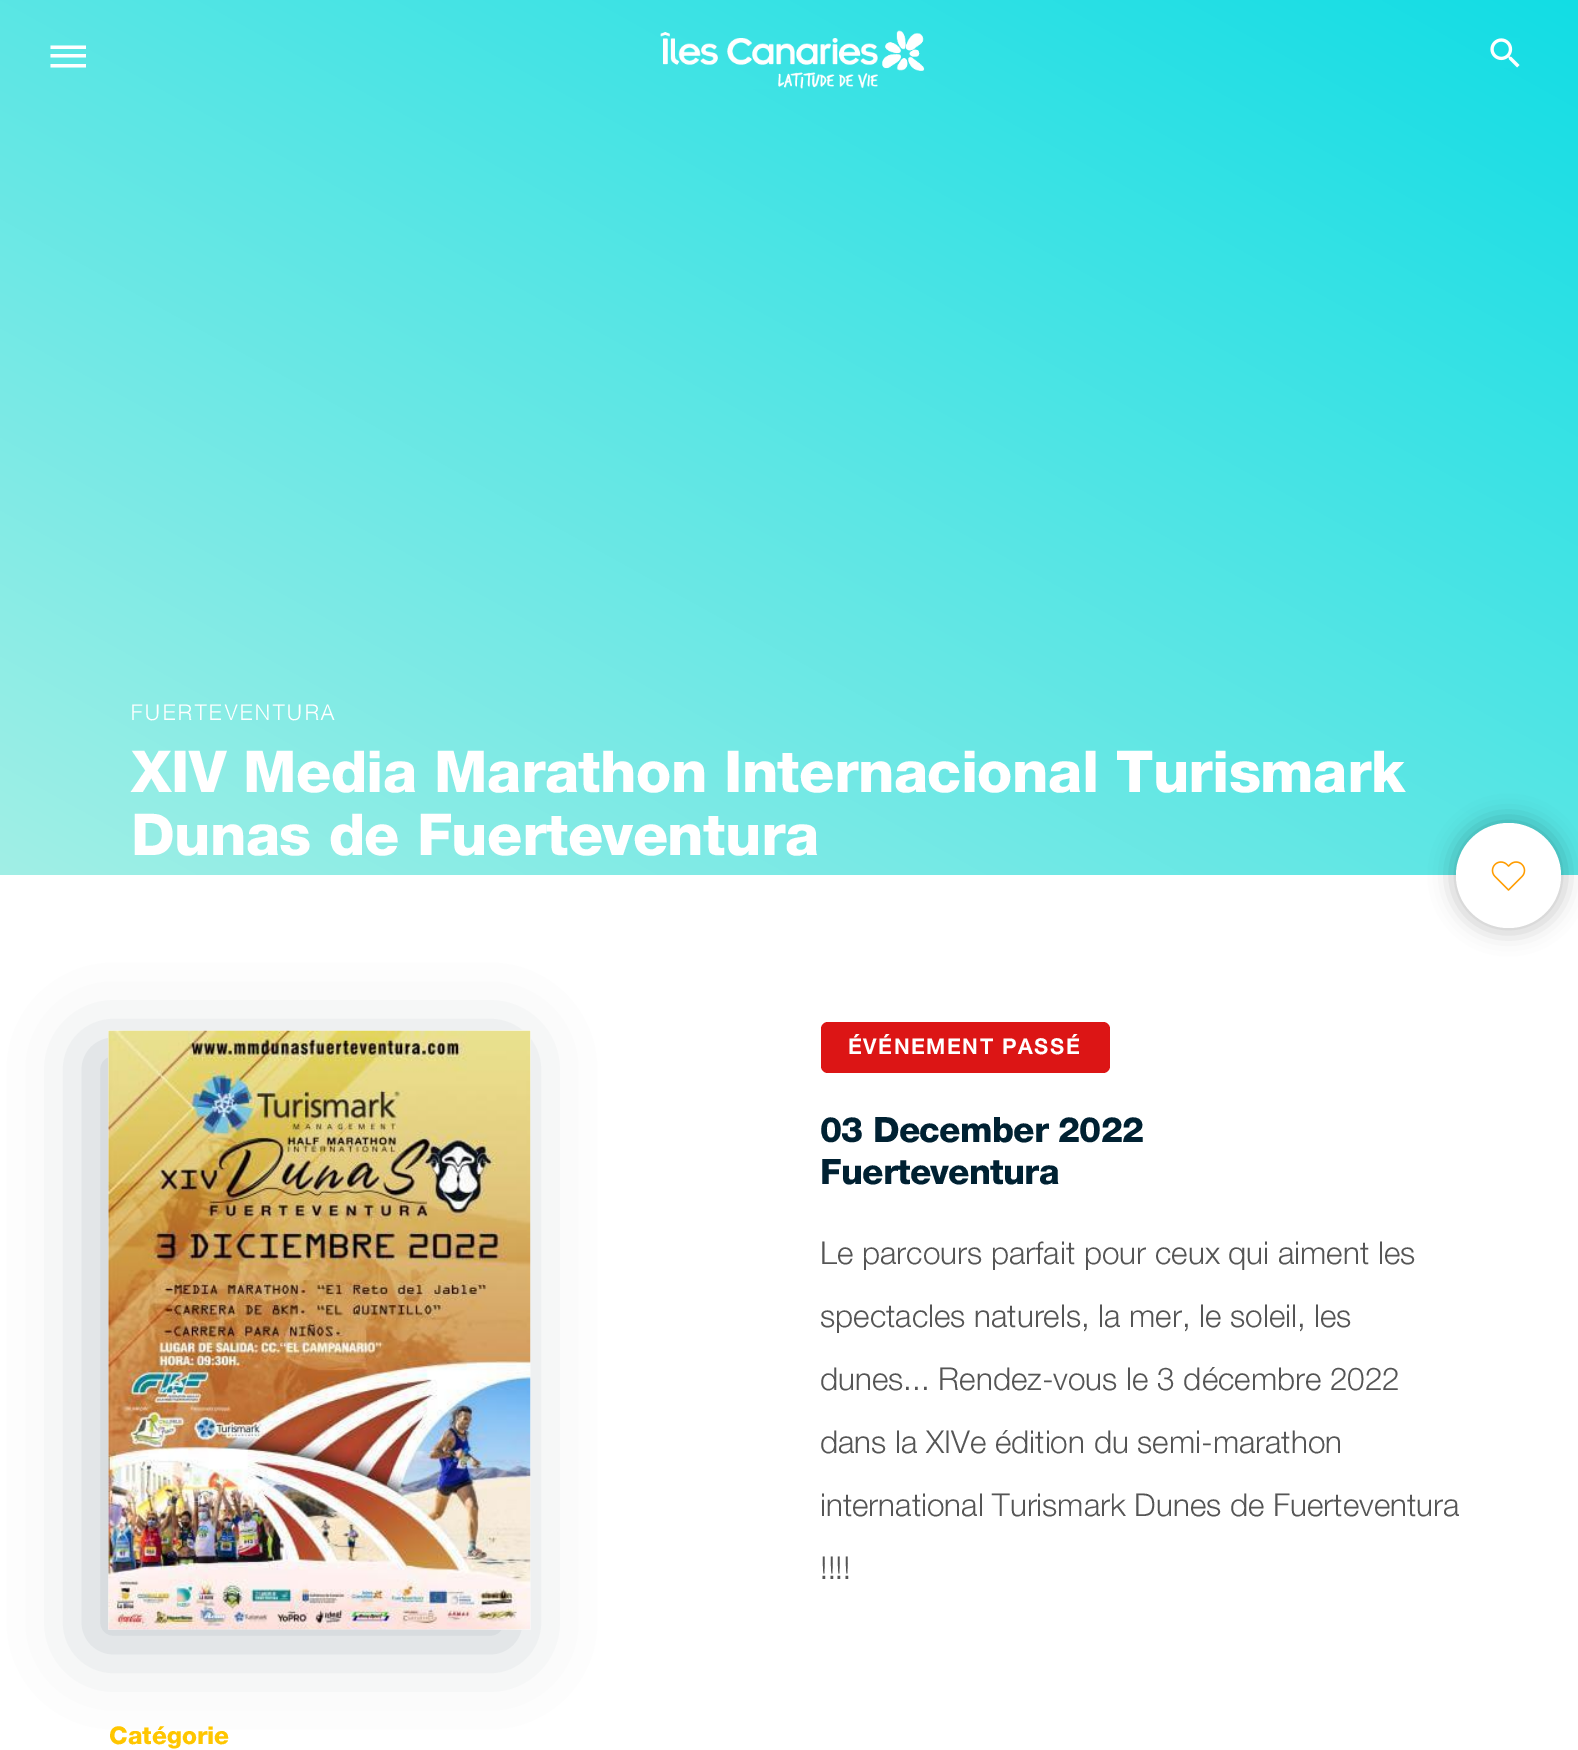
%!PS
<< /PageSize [1578 1750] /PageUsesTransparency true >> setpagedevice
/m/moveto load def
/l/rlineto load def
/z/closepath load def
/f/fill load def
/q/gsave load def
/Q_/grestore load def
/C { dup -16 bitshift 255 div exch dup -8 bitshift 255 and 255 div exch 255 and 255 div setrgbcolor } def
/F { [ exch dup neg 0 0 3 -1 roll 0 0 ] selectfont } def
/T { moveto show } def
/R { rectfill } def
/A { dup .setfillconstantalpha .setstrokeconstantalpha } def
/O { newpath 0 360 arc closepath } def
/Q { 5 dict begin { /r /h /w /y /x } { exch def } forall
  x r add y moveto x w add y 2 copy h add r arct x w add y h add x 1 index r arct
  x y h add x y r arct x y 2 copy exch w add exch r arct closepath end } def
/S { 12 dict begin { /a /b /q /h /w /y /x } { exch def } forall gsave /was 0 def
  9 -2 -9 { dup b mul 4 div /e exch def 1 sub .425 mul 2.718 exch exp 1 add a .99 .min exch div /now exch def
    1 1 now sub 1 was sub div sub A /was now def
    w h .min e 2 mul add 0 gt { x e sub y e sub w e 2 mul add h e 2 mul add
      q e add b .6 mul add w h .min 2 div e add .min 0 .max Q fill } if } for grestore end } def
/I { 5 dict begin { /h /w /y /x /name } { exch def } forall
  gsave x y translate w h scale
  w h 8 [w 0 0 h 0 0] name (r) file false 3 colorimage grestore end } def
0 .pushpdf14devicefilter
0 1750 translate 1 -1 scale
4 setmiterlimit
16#FFFFFF C
0 0 1578 1750 R
q 0 0 m 1578 0 l 0 875 l -1578 0 l z clip newpath
<< /ShadingType 2 /ColorSpace /DeviceRGB /Coords [418 1107 1160 -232] /Extend [true true] /Function << /FunctionType 2 /Domain [0 1] /C0 [.631 .937 .898] /C1 [.071 .867 .894] /N 1 >> >> shfill Q_
50.5 45.5 m 35.5 0 l 0 3.5 l -35.5 0 l z 50.5 64 m 35.5 0 l 0 3.5 l -35.5 0 l z 50.5 54 m 35.5 0 l 0 3.5 l -35.5 0 l z f
(1.rgb) 660 30 265 59 I
(2.rgb) 1490 38 30 30 I
/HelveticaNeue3-Bold 21 F
131 720 m 3.5 0 (FUERTEVENTURA) ashow
/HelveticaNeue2-Bold 57.75 F
131 792 m -.6 0 (XIV Media Marathon Internacional Turismark) ashow
131 855 m -.6 0 (Dunas de Fuerteventura) ashow
16#000000 C
1451 817 115 116 57.5 10.5 .21 S
16#FFFFFF C
1508.5 875.5 52.5 O f
(3.rgb) 1491 861 35 30 I
16#032433 C
91 1047 422 598 0 37.5 .22 S
(4.rgb) 108 1030 423 600 I
16#DC1515 C
821 1022 289 51 7 Q f
/HelveticaNeue-Bold 21 F
16#FFFFFF C
848 1054 m 2.1 0 (ÉVÉNEMENT PASSÉ) ashow
/HelveticaNeue2-Bold 35 F
16#002132 C
820 1142 m -.75 0 (03 December 2022) ashow
820 1184 m -.75 0 (Fuerteventura) ashow
/HelveticaNeue-Light 31.5 F
16#555555 C
(Le parcours parfait pour ceux qui aiment les) 820 1264 T
(spectacles naturels, la mer, le soleil, les) 820 1327 T
(dunes... Rendez-vous le 3 décembre 2022) 820 1390 T
(dans la XIVe édition du semi-marathon) 820 1453 T
(international Turismark Dunes de Fuerteventura) 820 1516 T
(!!!!) 820 1579 T
/HelveticaNeue2-Bold 24.5 F
16#FFC600 C
(Catégorie) 109 1744 T
.poppdf14devicefilter showpage
